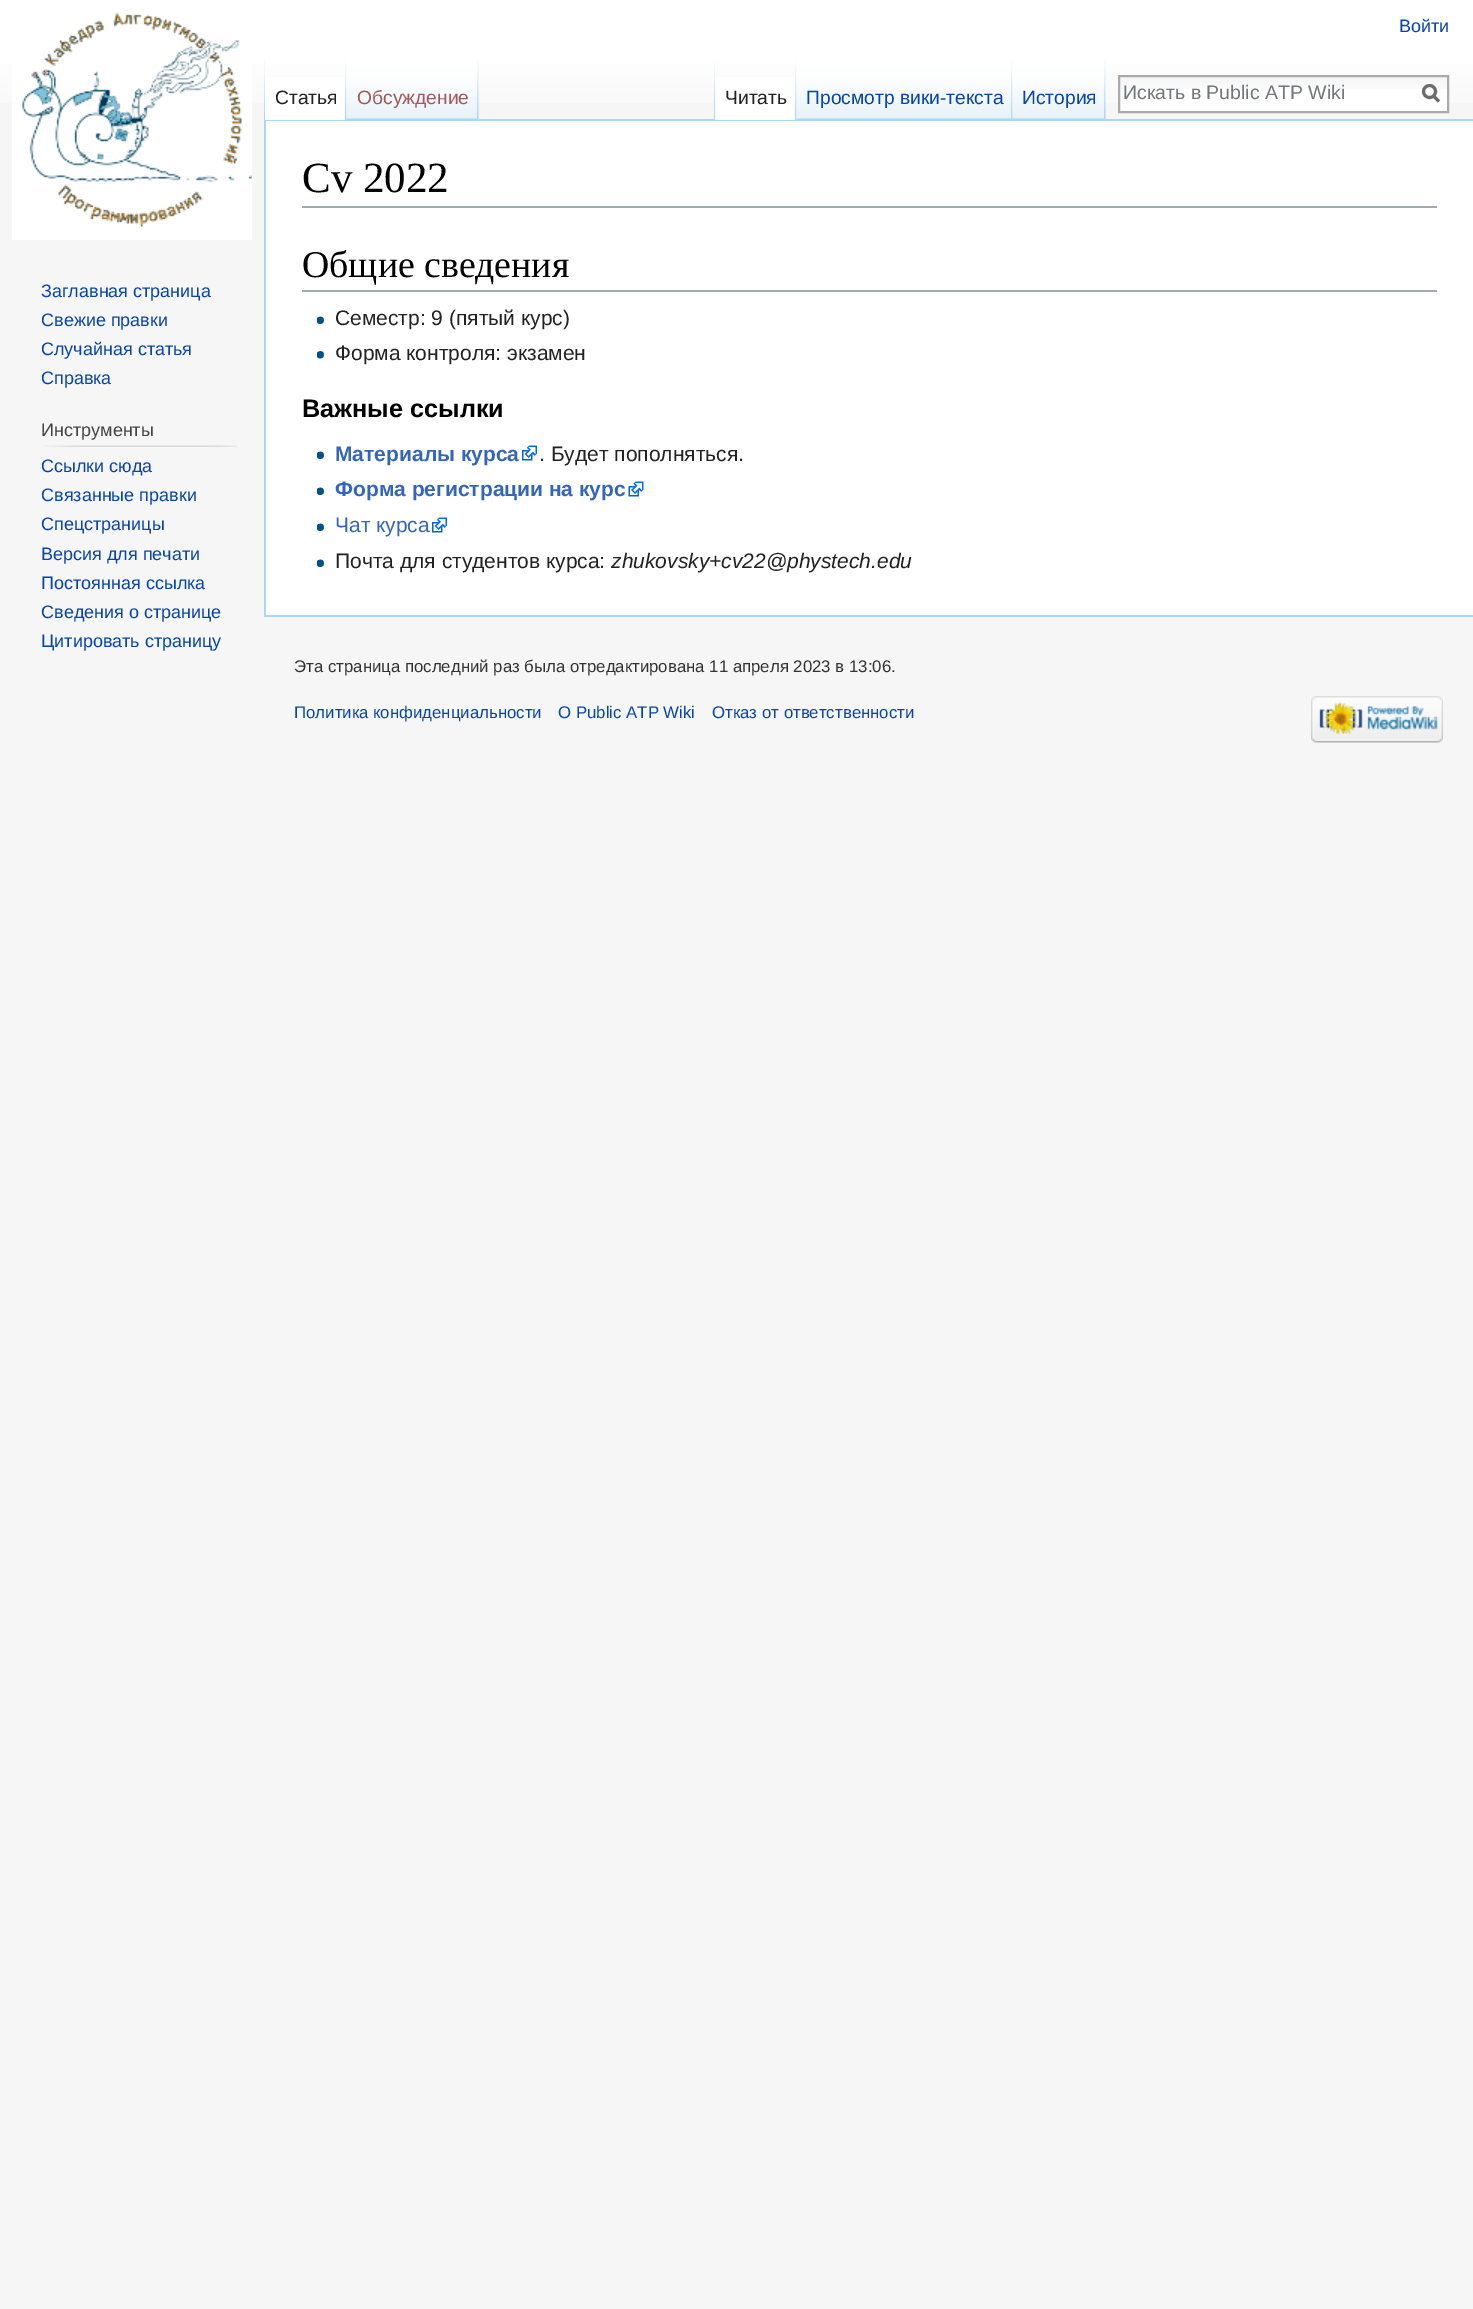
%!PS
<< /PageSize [1473 2309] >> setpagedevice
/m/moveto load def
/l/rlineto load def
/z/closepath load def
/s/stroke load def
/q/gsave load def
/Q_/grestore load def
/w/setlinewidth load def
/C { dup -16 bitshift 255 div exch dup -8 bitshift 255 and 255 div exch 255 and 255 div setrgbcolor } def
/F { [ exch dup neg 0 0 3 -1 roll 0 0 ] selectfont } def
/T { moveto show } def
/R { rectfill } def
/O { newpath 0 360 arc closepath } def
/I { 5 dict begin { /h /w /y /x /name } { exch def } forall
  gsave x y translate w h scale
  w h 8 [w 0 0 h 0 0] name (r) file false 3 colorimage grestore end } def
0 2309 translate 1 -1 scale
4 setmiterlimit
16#F6F6F6 C
0 0 1473 2309 R
q 0 0 m 1473 0 l 0 103 l -1473 0 l z clip newpath
<< /ShadingType 2 /ColorSpace /DeviceRGB /Coords [737 0 737 120] /Extend [true true] /Function << /FunctionType 3 /Domain [0 1] /Functions [<< /FunctionType 2 /Domain [0 1] /C0 [1 1 1] /C1 [1 1 1] /N 1 >> << /FunctionType 2 /Domain [0 1] /C0 [1 1 1] /C1 [.965 .965 .965] /N 1 >>] /Bounds [.5] /Encode [0 1 0 1] >> >> shfill Q_
/LiberationSans-Regular 18 F
16#0645AD C
(Войти) 1399 32 T
(1.rgb) 264 60 1 59 I
(2.rgb) 478 60 1 59 I
16#A7D7F9 C
264 119 1209 2 R
264 615 1209 2 R
264 119 2 498 R
16#FFFFFF C
265 77 82 43 R
(3.rgb) 345 60 2 60 I
/LiberationSans-Regular 19.25 F
16#222222 C
(Статья) 275 104 T
(4.rgb) 346 60 133 60 I
(5.rgb) 477 60 2 60 I
16#A55858 C
(Обсуждение) 357 104 T
(1.rgb) 714 60 1 59 I
(2.rgb) 1105 60 1 59 I
16#FFFFFF C
715 77 82 43 R
(3.rgb) 795 60 2 60 I
16#222222 C
(Читать) 725 104 T
(6.rgb) 796 60 217 60 I
(5.rgb) 1011 60 2 60 I
16#0645AD C
(Просмотр вики-текста) 806 104 T
(7.rgb) 1012 60 94 60 I
(5.rgb) 1104 60 2 60 I
(История) 1022 104 T
16#FFFFFF C
1120 89 327 22 R
(8.rgb) 1120 77 327 12 I
16#AAAAAA C
2 w
1119 76 329 36 rectstroke
/LiberationSans-Regular 19.5 F
16#72777D C
(Искать в Public ATP Wiki) 1123 99 T
16#6C6C6C C
3 w
1439 101.5 m -6 -6 l s
1429.5 91.5 6 O s
(9.rgb) 12 13 240 227 I
/LiberationSans-Regular 18 F
16#0645AD C
(Заглавная страница) 41 297 T
(Свежие правки) 41 326 T
(Случайная статья) 41 355 T
(Справка) 41 384 T
16#444444 C
(Инструменты) 41 436 T
(10.rgb) 44 445 193 2 I
16#0645AD C
(Ссылки сюда) 41 472 T
(Связанные правки) 41 501 T
(Спецстраницы) 41 530 T
(Версия для печати) 41 560 T
(Постоянная ссылка) 41 589 T
(Сведения о странице) 41 618 T
(Цитировать страницу) 41 647 T
16#FFFFFF C
266 121 1207 494 R
16#A2A9B1 C
302 206 1135 2 R
/LiberationSerif-Regular 43 F
16#000000 C
(Cv 2022) 302 192 T
16#A2A9B1 C
302 290 1135 2 R
/LiberationSerif-Regular 37.75 F
16#000000 C
(Общие сведения) 302 277 T
(11.rgb) 317 316 7 8 I
/LiberationSans-Regular 21 F
16#222222 C
(Семестр: 9 \(пятый курс\)) 335 325 T
(12.rgb) 317 351 7 8 I
(Форма контроля: экзамен) 335 360 T
/LiberationSans-Bold 25.25 F
16#000000 C
(Важные ссылки) 302 417 T
(11.rgb) 317 451 7 8 I
/LiberationSans-Bold 21 F
16#3366BB C
(Материалы курса) 335 461 T
(13.rgb) 522 445 15 16 I
/LiberationSans-Regular 21 F
16#222222 C
(. Будет пополняться.) 539 461 T
(11.rgb) 317 487 7 8 I
/LiberationSans-Bold 21 F
16#3366BB C
(Форма регистрации на курс) 335 496 T
(14.rgb) 628 481 16 16 I
(11.rgb) 317 523 7 8 I
/LiberationSans-Regular 21 F
(Чат курса) 335 532 T
(13.rgb) 432 517 15 16 I
(11.rgb) 317 559 7 8 I
16#222222 C
(Почта для студентов курса:) 335 568 T
/LiberationSans-Italic 21 F
(zhukovsky+cv22@phystech.edu) 611 568 T
/LiberationSans-Regular 16.8 F
16#333333 C
(Эта страница последний раз была отредактирована 11 апреля 2023 в 13:06.) 294 672 T
16#0645AD C
(Политика конфиденциальности) 294 718 T
(О Public ATP Wiki) 558 718 T
(Отказ от ответственности) 712 718 T
(15.rgb) 1311 696 132 47 I
showpage
